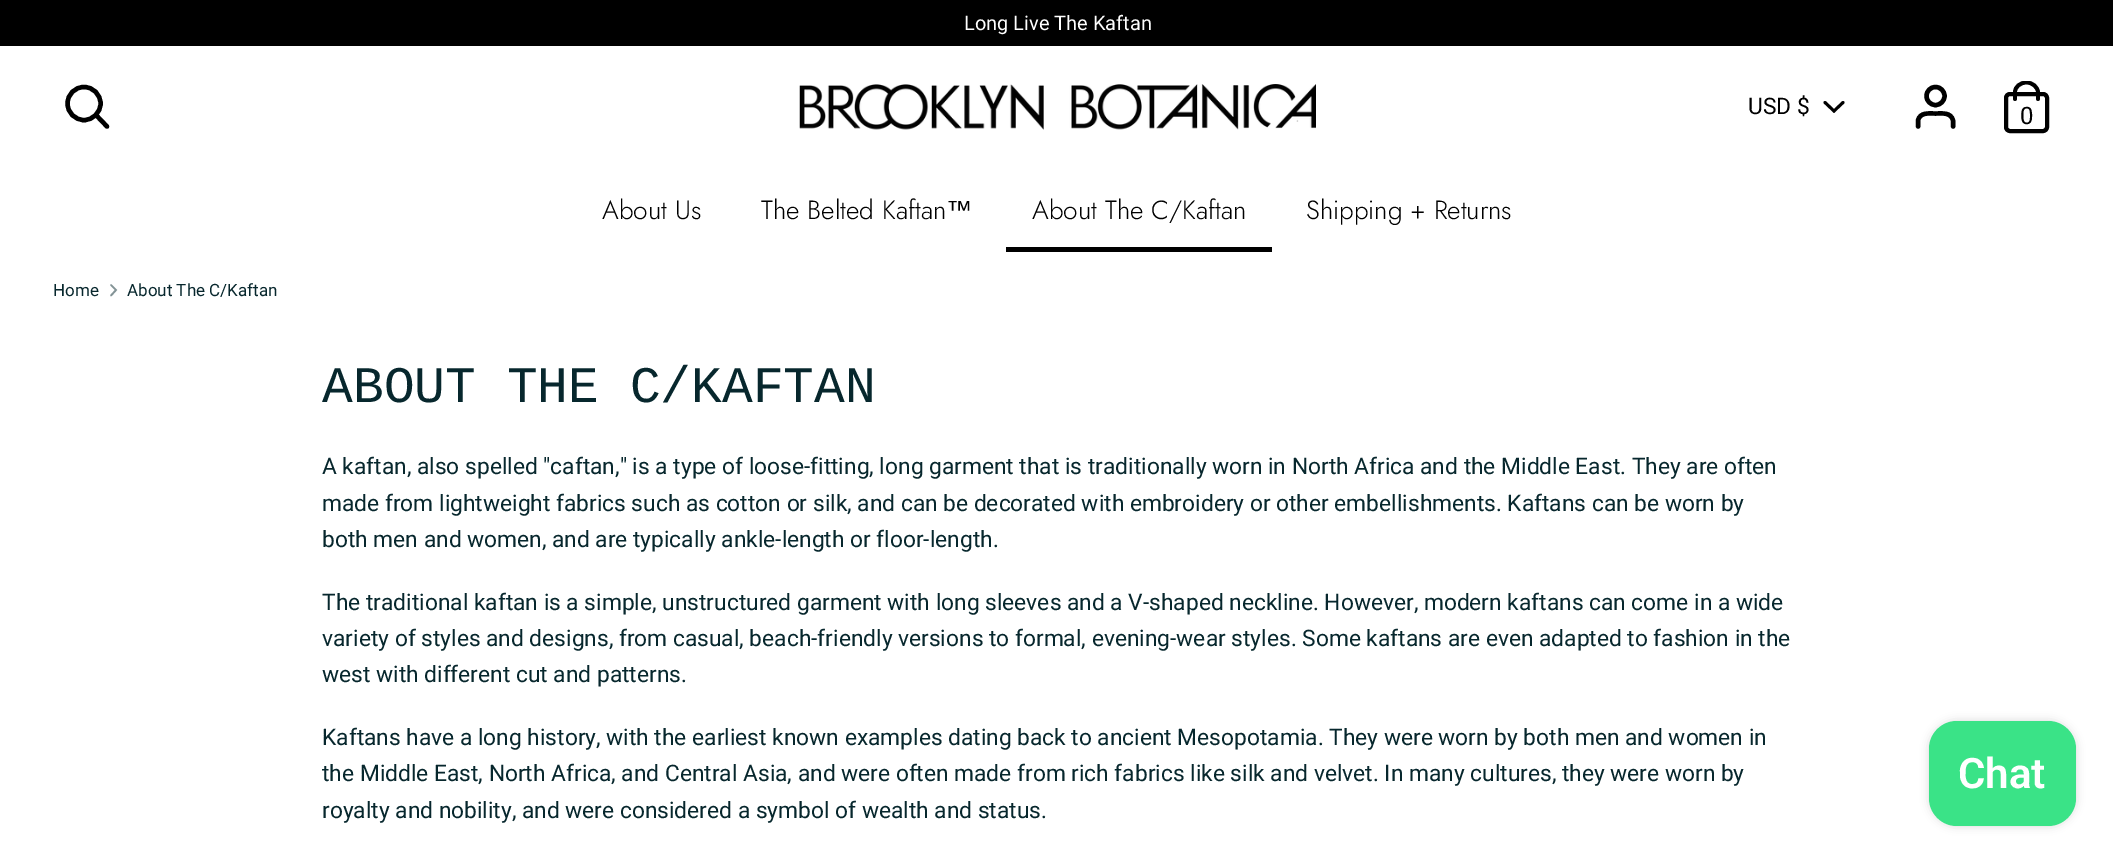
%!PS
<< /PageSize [2113 862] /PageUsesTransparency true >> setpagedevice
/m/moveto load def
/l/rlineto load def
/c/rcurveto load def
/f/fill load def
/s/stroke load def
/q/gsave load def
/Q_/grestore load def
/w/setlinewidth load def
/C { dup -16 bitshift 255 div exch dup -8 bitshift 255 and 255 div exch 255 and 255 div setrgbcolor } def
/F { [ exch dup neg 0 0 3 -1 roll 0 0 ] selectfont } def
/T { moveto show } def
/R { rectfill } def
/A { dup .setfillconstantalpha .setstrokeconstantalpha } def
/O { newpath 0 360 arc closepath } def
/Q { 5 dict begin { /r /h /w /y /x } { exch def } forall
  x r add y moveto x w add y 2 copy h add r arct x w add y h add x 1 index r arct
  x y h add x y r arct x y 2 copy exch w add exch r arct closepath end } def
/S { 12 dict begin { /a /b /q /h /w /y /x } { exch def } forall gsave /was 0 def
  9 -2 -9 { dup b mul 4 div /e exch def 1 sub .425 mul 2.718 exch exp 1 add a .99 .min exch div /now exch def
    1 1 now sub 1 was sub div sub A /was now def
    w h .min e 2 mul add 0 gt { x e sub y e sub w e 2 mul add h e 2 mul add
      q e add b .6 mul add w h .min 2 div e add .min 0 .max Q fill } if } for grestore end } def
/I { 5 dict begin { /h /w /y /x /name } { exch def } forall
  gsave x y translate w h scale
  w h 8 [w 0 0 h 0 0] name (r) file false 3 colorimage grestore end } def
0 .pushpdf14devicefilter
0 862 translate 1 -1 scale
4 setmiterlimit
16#FFFFFF C
0 0 2113 862 R
16#000000 C
0 0 2113 46 R
/Roboto-Regular 20 F
16#FFFFFF C
(Long Live The Kaftan) 964 30 T
16#000000 C
4.4 w
84 103.5 16.5 O s
1 setlinecap
107 126.5 m -11 -11.5 l s
(1.rgb) 799 84 517 46 I
/Roboto-Regular 22.75 F
(USD $) 1748 114 T
2.9 w
1825 102.5 m 9 8.5 l 9 -8.5 l s
4.4 w
1953 126.5 m 0 -6 l -2 -8.5 -11 -7 -17.5 -7 c -6.5 0 -15.5 -1.5 -17.5 7 c 0 6 l s
0 setlinecap
1935.5 96 9 O s
4 w
2006 94 41 37 4 Q s
q
2000 81 53 52 rectclip
3.8 w
1 setlinecap
2015 99 m 0 -7 l 0 -5 5 -9.5 11.5 -9.5 c 6 0 11 4.5 11.5 9.5 c 0 7 l s
Q_
/Roboto-Regular 24 F
(0) 2020 124 T
/Jost-Light 26.25 F
(About Us) 602 219 T
(The Belted Kaftan) 761 219 T
/LiberationSans-Regular 26.25 F
(™) 946 219 T
/Jost-Light 26.25 F
(About The C/Kaftan) 1032 219 T
1006 247 266 5 R
(Shipping + Returns) 1306 219 T
/Roboto-Regular 17 F
16#07272D C
(Home) 53 296 T
16#839396 C
1.7 w
1 setlinecap
111 295.5 m 5 -5.5 l -5 -5 l s
16#07272D C
(About The C/Kaftan) 127 296 T
/LiberationMono-Regular 51.25 F
(ABOUT THE C/KAFTAN) 322 402 T
/Roboto-Regular 22.75 F
(A kaftan, also spelled "caftan," is a type of loose-fitting, long garment that is traditionally worn in North Africa and the Middle East. They are often) 322 474 T
(made from lightweight fabrics such as cotton or silk, and can be decorated with embroidery or other embellishments. Kaftans can be worn by) 322 511 T
(both men and women, and are typically ankle-length or floor-length.) 322 547 T
(The traditional kaftan is a simple, unstructured garment with long sleeves and a V-shaped neckline. However, modern kaftans can come in a wide) 322 610 T
(variety of styles and designs, from casual, beach-friendly versions to formal, evening-wear styles. Some kaftans are even adapted to fashion in the) 322 646 T
(west with different cut and patterns.) 322 682 T
(Kaftans have a long history, with the earliest known examples dating back to ancient Mesopotamia. They were worn by both men and women in) 322 745 T
(the Middle East, North Africa, and Central Asia, and were often made from rich fabrics like silk and velvet. In many cultures, they were worn by) 322 781 T
(royalty and nobility, and were considered a symbol of wealth and status.) 322 818 T
16#000000 C
1929 721 147 105 28 4.5 .15 S
16#3AE387 C
1929 721 147 105 28 Q f
/Roboto-SemiBold 42 F
16#FFFFFF C
(Chat) 1958 788 T
.poppdf14devicefilter showpage
